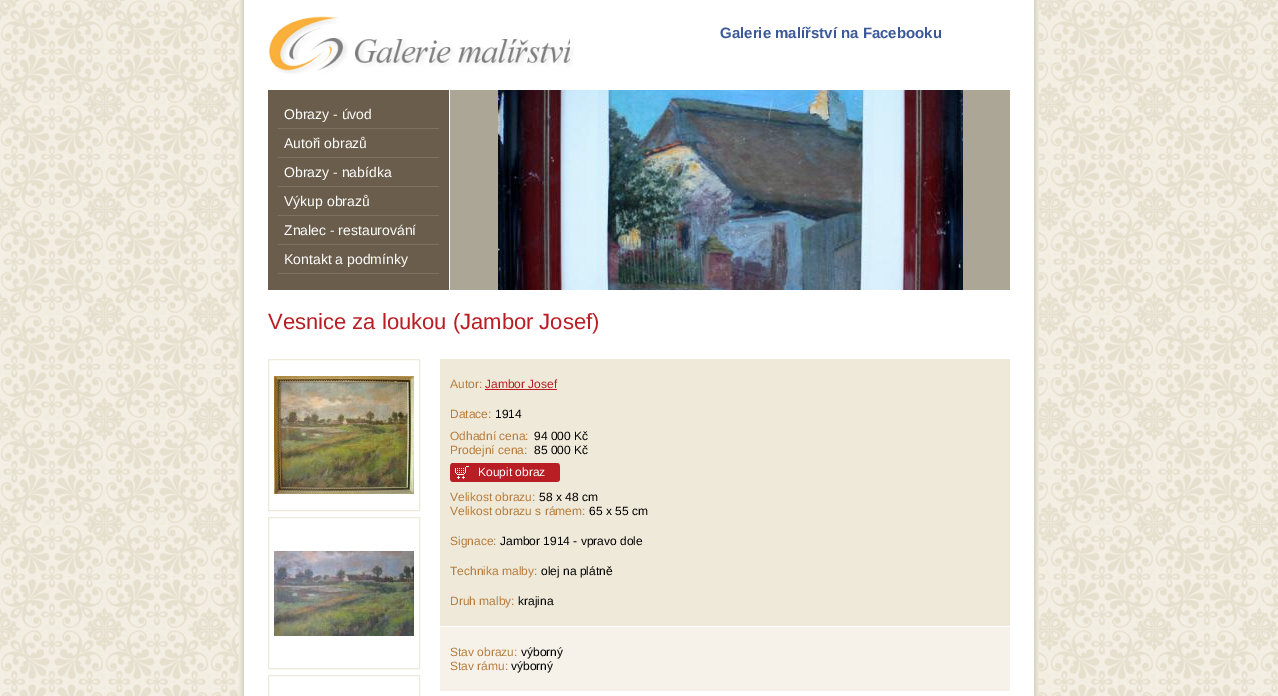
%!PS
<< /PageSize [1278 696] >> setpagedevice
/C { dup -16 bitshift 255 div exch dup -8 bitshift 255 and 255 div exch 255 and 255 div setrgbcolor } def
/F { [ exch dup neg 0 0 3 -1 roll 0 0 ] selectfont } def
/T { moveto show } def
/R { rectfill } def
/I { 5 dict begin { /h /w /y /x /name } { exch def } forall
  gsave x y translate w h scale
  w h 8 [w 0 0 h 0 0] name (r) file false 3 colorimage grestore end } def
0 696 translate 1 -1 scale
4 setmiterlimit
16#F0EDDE C
0 0 1278 696 R
(1.rgb) 0 0 1278 696 I
16#FFFFFF C
244 0 790 696 R
(2.rgb) 239 0 5 696 I
(3.rgb) 1034 0 5 696 I
(4.rgb) 268 16 306 58 I
/LiberationSans-Bold 15 F
16#3B5998 C
(Galerie malířství na Facebooku) 720 38 T
16#6A5D4B C
268 90 181 200 R
16#7D7262 C
278 128 161 1 R
/LiberationSans-Regular 14 F
16#FFFFFF C
(Obrazy - úvod) 284 119 T
16#7D7262 C
278 157 161 1 R
16#FFFFFF C
(Autoři obrazů) 284 148 T
16#7D7262 C
278 186 161 1 R
16#FFFFFF C
(Obrazy - nabídka) 284 177 T
16#7D7262 C
278 215 161 1 R
16#FFFFFF C
(Výkup obrazů) 284 206 T
16#7D7262 C
278 244 161 1 R
16#FFFFFF C
(Znalec - restaurování) 284 235 T
16#7D7262 C
278 273 161 1 R
16#FFFFFF C
(Kontakt a podmínky) 284 264 T
16#ACA696 C
450 90 560 200 R
(5.rgb) 498 90 465 200 I
/LiberationSans-Regular 22 F
16#B91E25 C
(Vesnice za loukou \(Jambor Josef\)) 268 329 T
(6.rgb) 274 376 140 118 I
16#EFE9D9 C
268.5 359.5 151 151 rectstroke
(7.rgb) 274 551 140 85 I
268.5 517.5 151 151 rectstroke
268.5 675.5 151 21 rectstroke
440 359 570 267 R
/LiberationSans-Regular 12 F
16#B67C3D C
(Autor:) 450 388 T
16#B91E25 C
(Jambor Josef) 485 388 T
485 389 72 1 R
16#B67C3D C
(Datace:) 450 418 T
16#000000 C
(1914) 495 418 T
16#B67C3D C
(Odhadní cena:) 450 440 T
16#000000 C
(94 000 Kč) 534 440 T
16#B67C3D C
(Prodejní cena:) 450 454 T
16#000000 C
(85 000 Kč) 534 454 T
(8.rgb) 450 463 110 19 I
16#FFFFFF C
(Koupit obraz) 478 476 T
16#B67C3D C
(Velikost obrazu:) 450 501 T
16#000000 C
(58 x 48 cm) 539 501 T
16#B67C3D C
(Velikost obrazu s rámem:) 450 515 T
16#000000 C
(65 x 55 cm) 589 515 T
16#B67C3D C
(Signace:) 450 545 T
16#000000 C
(Jambor 1914 - vpravo dole) 500 545 T
16#B67C3D C
(Technika malby:) 450 575 T
16#000000 C
(olej na plátně) 541 575 T
16#B67C3D C
(Druh malby:) 450 605 T
16#000000 C
(krajina) 518 605 T
16#F6F2E9 C
440 627 570 64 R
16#B67C3D C
(Stav obrazu:) 450 656 T
16#000000 C
(výborný) 521 656 T
16#B67C3D C
(Stav rámu:) 450 670 T
16#000000 C
(výborný) 511 670 T
showpage
